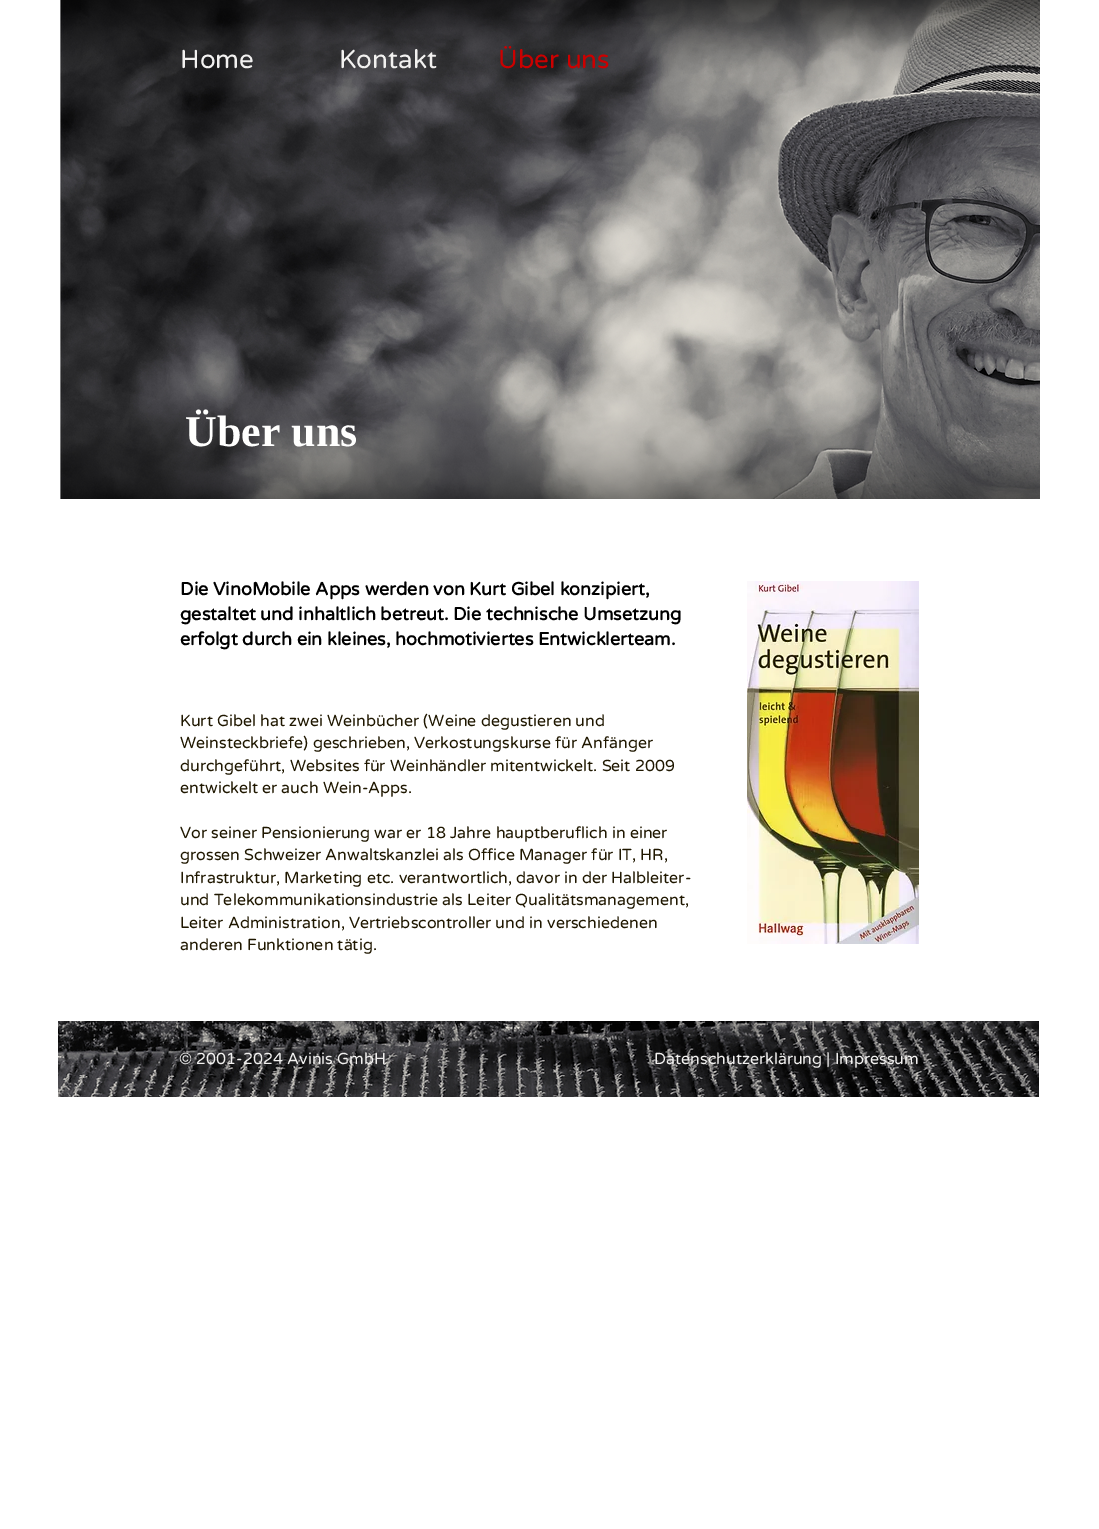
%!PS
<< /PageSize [1099 1529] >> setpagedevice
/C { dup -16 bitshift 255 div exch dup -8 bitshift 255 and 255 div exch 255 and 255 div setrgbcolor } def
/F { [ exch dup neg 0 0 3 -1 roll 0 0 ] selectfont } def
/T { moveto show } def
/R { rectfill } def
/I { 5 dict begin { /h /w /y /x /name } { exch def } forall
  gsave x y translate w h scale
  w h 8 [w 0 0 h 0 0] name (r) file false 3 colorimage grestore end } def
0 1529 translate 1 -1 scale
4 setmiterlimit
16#FFFFFF C
0 0 1099 1529 R
(1.rgb) 60 0 980 499 I
/VarelaRound-Regular 26 F
16#F2F1F0 C
(Home) 180 68 T
(Kontakt) 339 68 T
16#CC0000 C
(Über uns) 498 68 T
/LiberationSerif-Bold 44 F
16#FFFFFE C
(Über uns) 185 446 T
/VarelaRound-Bold 18 F
16#000000 C
(Die VinoMobile Apps werden von Kurt Gibel konzipiert,) 180 595 T
(gestaltet und inhaltlich betreut. Die technische Umsetzung) 180 620 T
(erfolgt durch ein kleines, hochmotiviertes Entwicklerteam.) 180 645 T
(2.rgb) 747 581 172 363 I
/VarelaRound-Regular 16 F
16#1F1700 C
(Kurt Gibel hat zwei Weinbücher \(Weine degustieren und) 180 726 T
(Weinsteckbriefe\) geschrieben, Verkostungskurse für Anfänger) 180 748 T
(durchgeführt, Websites für Weinhändler mitentwickelt. Seit 2009) 180 771 T
(entwickelt er auch Wein-Apps.) 180 793 T
(Vor seiner Pensionierung war er 18 Jahre hauptberuflich in einer) 180 838 T
(grossen Schweizer Anwaltskanzlei als Office Manager für IT, HR,) 180 860 T
(Infrastruktur, Marketing etc. verantwortlich, davor in der Halbleiter-) 180 883 T
(und Telekommunikationsindustrie als Leiter Qualitätsmanagement,) 180 905 T
(Leiter Administration, Vertriebscontroller und in verschiedenen) 180 928 T
(anderen Funktionen tätig.) 180 950 T
(3.rgb) 58 1021 981 76 I
16#F2F1F0 C
(© 2001-2024 Avinis GmbH) 179 1064 T
(Datenschutzerklärung | Impressum) 654 1064 T
showpage
